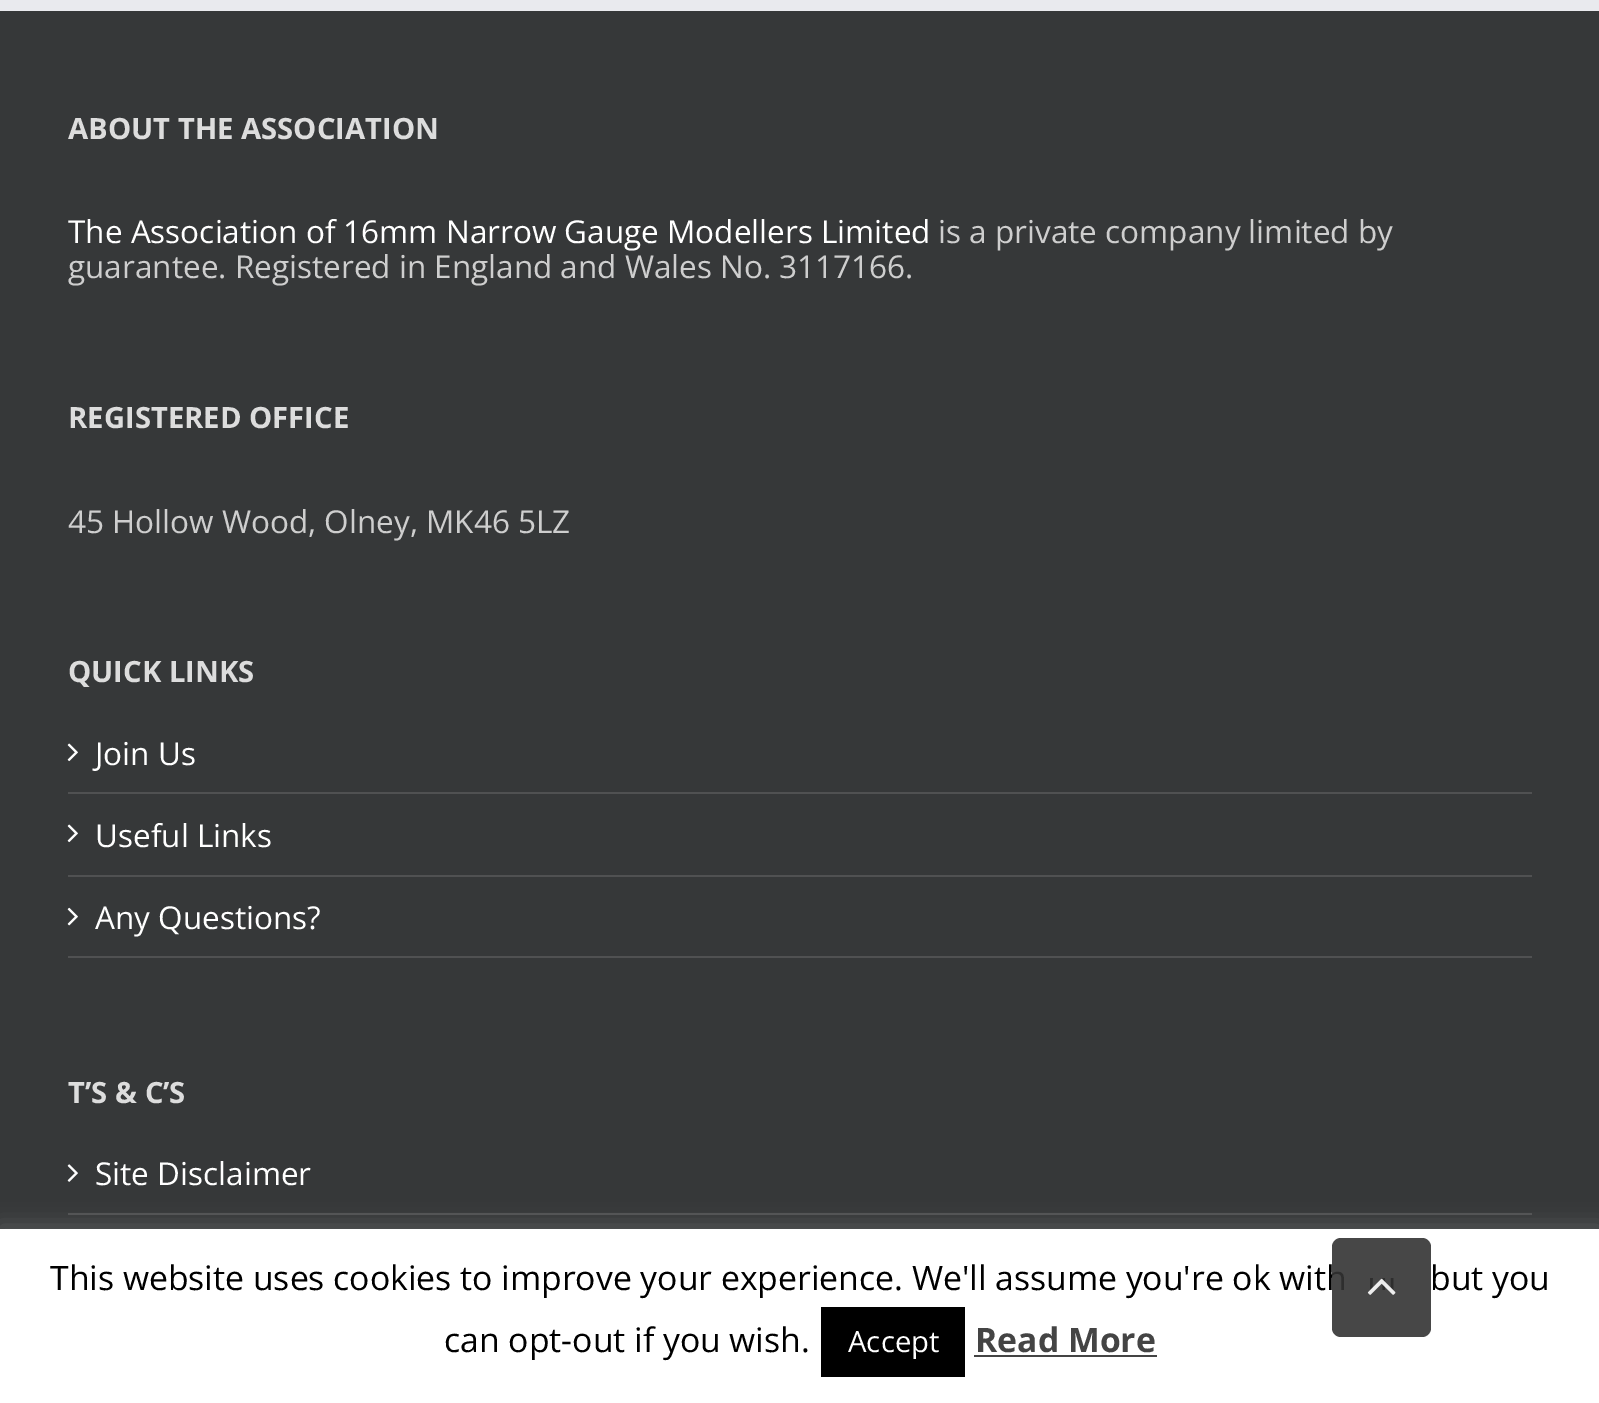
%!PS
<< /PageSize [1599 1403] /PageUsesTransparency true >> setpagedevice
/f/fill load def
/C { dup -16 bitshift 255 div exch dup -8 bitshift 255 and 255 div exch 255 and 255 div setrgbcolor } def
/F { [ exch dup neg 0 0 3 -1 roll 0 0 ] selectfont } def
/T { moveto show } def
/R { rectfill } def
/A { dup .setfillconstantalpha .setstrokeconstantalpha } def
/Q { 5 dict begin { /r /h /w /y /x } { exch def } forall
  x r add y moveto x w add y 2 copy h add r arct x w add y h add x 1 index r arct
  x y h add x y r arct x y 2 copy exch w add exch r arct closepath end } def
/S { 12 dict begin { /a /b /q /h /w /y /x } { exch def } forall gsave /was 0 def
  9 -2 -9 { dup b mul 4 div /e exch def 1 sub .425 mul 2.718 exch exp 1 add a .99 .min exch div /now exch def
    1 1 now sub 1 was sub div sub A /was now def
    w h .min e 2 mul add 0 gt { x e sub y e sub w e 2 mul add h e 2 mul add
      q e add b .6 mul add w h .min 2 div e add .min 0 .max Q fill } if } for grestore end } def
/I { 5 dict begin { /h /w /y /x /name } { exch def } forall
  gsave x y translate w h scale
  w h 8 [w 0 0 h 0 0] name (r) file false 3 colorimage grestore end } def
0 .pushpdf14devicefilter
0 1403 translate 1 -1 scale
4 setmiterlimit
16#363839 C
0 0 1599 1403 R
16#E9EAEE C
0 0 1599 11 R
/OpenSans-Bold 29.25 F
16#DDDDDD C
(ABOUT THE ASSOCIATION) 68 139 T
/OpenSans-Regular 31.5 F
16#FFFFFF C
(The Association of 16mm Narrow Gauge Modellers Limited) 68 243 T
16#CECECE C
(is a private company limited by) 938 243 T
(guarantee. Registered in England and Wales No. 3117166.) 68 278 T
/OpenSans-Bold 29.25 F
16#DDDDDD C
(REGISTERED OFFICE) 68 428 T
/OpenSans-Regular 31.5 F
16#CECECE C
(45 Hollow Wood, Olney, MK46 5LZ) 68 533 T
/OpenSans-Bold 29.25 F
16#DDDDDD C
(QUICK LINKS) 68 682 T
16#505152 C
68 792 1464 2 R
(1.rgb) 67 743 11 19 I
/OpenSans-Regular 31.5 F
16#FFFFFF C
(Join Us) 95 765 T
16#505152 C
68 875 1464 2 R
(1.rgb) 67 824 11 19 I
16#FFFFFF C
(Useful Links) 95 847 T
16#505152 C
68 956 1464 2 R
(2.rgb) 67 907 11 19 I
16#FFFFFF C
(Any Questions?) 95 929 T
/OpenSans-Bold 29.25 F
16#DDDDDD C
(T’S & C’S) 68 1103 T
16#505152 C
68 1213 1464 2 R
(3.rgb) 67 1164 11 18 I
/OpenSans-Regular 31.5 F
16#FFFFFF C
(Site Disclaimer) 95 1185 T
16#ACABAB C
0 1226 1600 176 0 11 .3 S
16#FFFFFF C
0 1229 1599 174 R
/OpenSans-Regular 33.75 F
16#000000 C
(This website uses cookies to improve your experience. We'll assume you're ok with) 50 1290 T
0.9 A
16#333333 C
1332 1238 99 99 9 Q f
1 A
(4.rgb) 1367 1278 29 17 I
16#000000 C
(but you) 1430 1290 T
(can opt-out if you wish.) 444 1352 T
821 1307 144 70 R
/OpenSans-Regular 29.25 F
16#FFFFFF C
(Accept) 848 1352 T
/OpenSans-Bold 33.75 F
16#444444 C
(Read More) 975 1352 T
974 1355 183 2 R
.poppdf14devicefilter showpage
